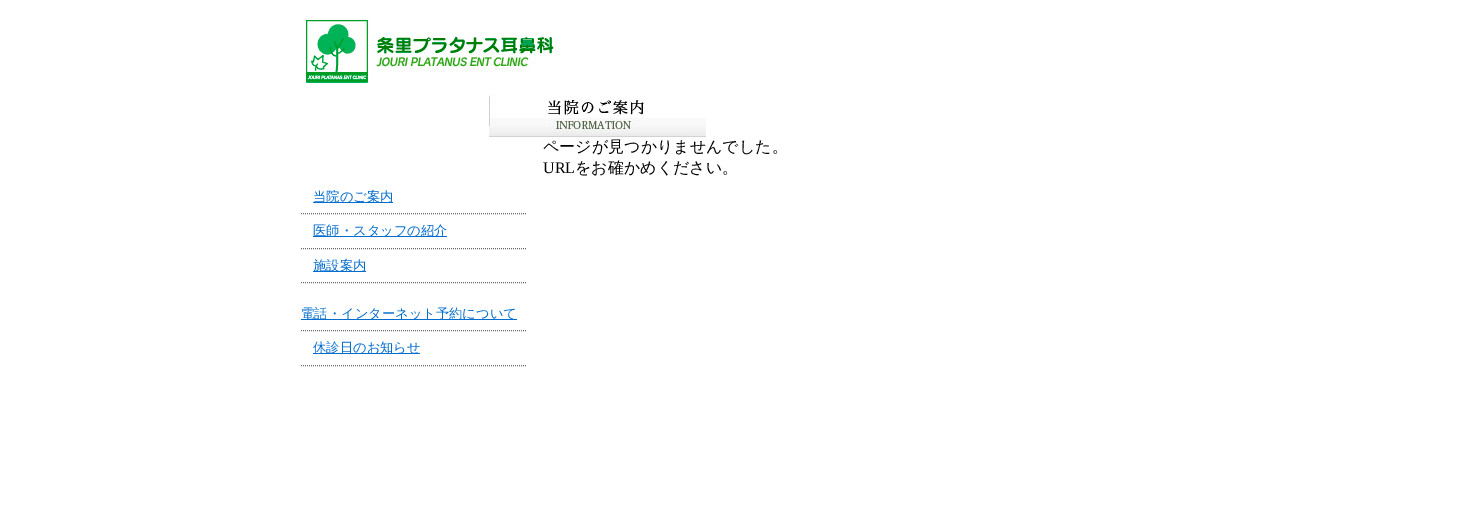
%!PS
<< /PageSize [1481 527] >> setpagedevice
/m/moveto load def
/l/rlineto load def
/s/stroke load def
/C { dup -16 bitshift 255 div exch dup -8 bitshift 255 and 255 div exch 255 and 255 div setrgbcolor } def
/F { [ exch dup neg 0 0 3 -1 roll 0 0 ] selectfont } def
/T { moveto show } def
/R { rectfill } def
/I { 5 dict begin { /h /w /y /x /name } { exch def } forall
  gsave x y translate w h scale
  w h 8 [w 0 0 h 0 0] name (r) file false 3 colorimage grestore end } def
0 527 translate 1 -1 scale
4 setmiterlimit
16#FFFFFF C
0 0 1481 527 R
(1.rgb) 304 17 253 69 I
(2.rgb) 489 95 217 42 I
/WenQuanYiZenHei-Medium 16 F
16#000000 C
(ページが見つかりませんでした。) 543 152 T
/LiberationSerif-Regular 16 F
(URL) 543 173 T
/WenQuanYiZenHei-Medium 16 F
(をお確かめください。) 575 173 T
16#696969 C
[1 1] 0 setdash
301 213.5 m 226 0 l s
16#026DCE C
313 202 80 1 R
/WenQuanYiZenHei-Medium 13.3 F
(当院のご案内) 313 201 T
16#696969 C
301 248.5 m 226 0 l s
16#026DCE C
313 236 134 1 R
(医師・スタッフの紹介) 313 235 T
16#696969 C
301 282.5 m 226 0 l s
16#026DCE C
313 271 53 1 R
(施設案内) 313 270 T
16#696969 C
301 330.5 m 226 0 l s
16#026DCE C
301 319 216 1 R
(電話・インターネット予約について) 301 318 T
16#696969 C
301 365.5 m 226 0 l s
16#026DCE C
313 353 107 1 R
(休診日のお知らせ) 313 352 T
showpage
